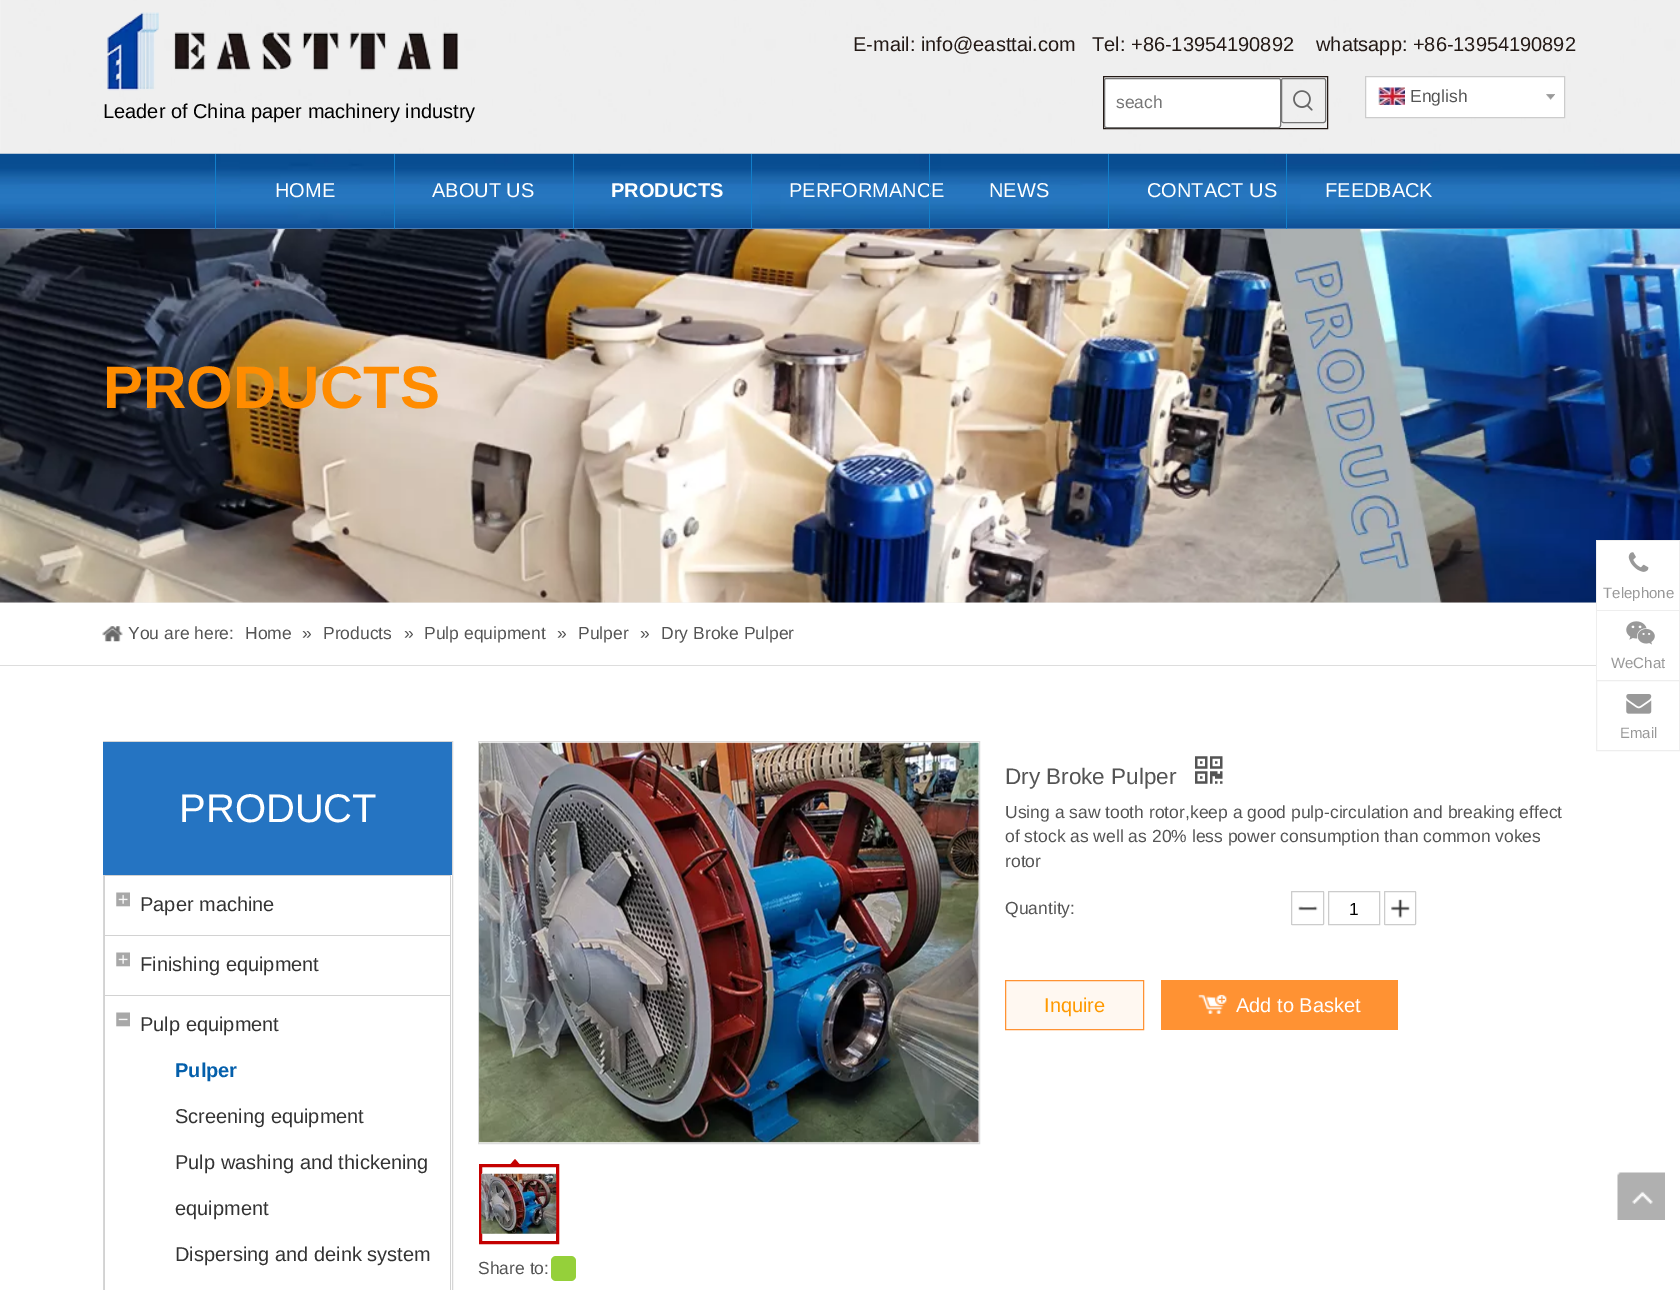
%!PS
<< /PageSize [1680 1290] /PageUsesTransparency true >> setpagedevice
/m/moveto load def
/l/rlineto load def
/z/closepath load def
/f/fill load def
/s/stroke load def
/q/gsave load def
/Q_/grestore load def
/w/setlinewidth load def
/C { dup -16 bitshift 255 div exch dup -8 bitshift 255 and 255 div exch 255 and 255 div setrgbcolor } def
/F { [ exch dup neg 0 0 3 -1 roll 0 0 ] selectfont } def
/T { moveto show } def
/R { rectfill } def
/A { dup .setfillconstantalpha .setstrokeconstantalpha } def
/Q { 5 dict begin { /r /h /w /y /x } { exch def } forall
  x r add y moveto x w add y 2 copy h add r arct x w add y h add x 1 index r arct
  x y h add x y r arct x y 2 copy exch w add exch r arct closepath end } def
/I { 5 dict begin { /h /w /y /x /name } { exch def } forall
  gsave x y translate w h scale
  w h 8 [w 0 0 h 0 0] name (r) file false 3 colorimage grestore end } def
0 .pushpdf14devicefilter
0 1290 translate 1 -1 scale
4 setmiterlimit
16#FFFFFF C
0 0 1680 1290 R
(1.rgb) 0 0 1680 603 I
0.82 A
16#EEEEEE C
1 0 1679 154 R
/LiberationSans-Regular 20 F
1 A
16#231915 C
(E-mail: info@easttai.com) 853 51 T
(Tel: +86-13954190892    whatsapp: +86-13954190892) 1092 51 T
1103.5 76.5 224 52 rectstroke
16#FFFFFF C
1104.5 78.5 176 49 2 Q q f Q_
16#767676 C
s
/LiberationSans-Regular 17.5 F
16#757575 C
(seach) 1116 108 T
16#767676 C
1281.5 78.5 44 44 2 Q s
(2.rgb) 1293 90 20 21 I
16#FFFFFF C
1365.5 76.5 m 199 0 l 0 41 l -199 0 l z q f Q_
16#CCCCCC C
s
(3.rgb) 1378 87 27 18 I
16#545454 C
(English) 1410 102 T
(4.rgb) 1546 94 9 6 I
(5.rgb) 107 12 352 79 I
/LiberationSans-Regular 20 F
16#000000 C
(Leader of China paper machinery industry) 103 118 T
(7.rgb) 0 228 1680 375 I
(6.rgb) 0 153 1680 76 I
16#127FCA C
215 154 1 75 R
16#FFFFFF C
(HOME) 275 197 T
16#127FCA C
394 154 1 75 R
16#FFFFFF C
(ABOUT US) 432 197 T
16#127FCA C
573 154 1 75 R
/LiberationSans-Bold 20 F
16#FFFFFF C
(PRODUCTS) 611 197 T
16#127FCA C
751 154 1 75 R
/LiberationSans-Regular 20 F
16#FFFFFF C
(PERFORMANCE) 789 197 T
16#127FCA C
929 154 1 75 R
16#FFFFFF C
(NEWS) 989 197 T
16#127FCA C
1108 154 1 75 R
16#FFFFFF C
(CONTACT US) 1147 197 T
16#127FCA C
1286 154 1 75 R
16#FFFFFF C
(FEEDBACK) 1325 197 T
/LiberationSans-Bold 60 F
16#FF8C00 C
(PRODUCTS) 103 408 T
16#DDDDDD C
0 665 1596 1 R
(8.rgb) 102 626 21 16 I
/LiberationSans-Regular 17.5 F
16#545454 C
(You are here:) 128 639 T
(Home) 245 639 T
(») 302 639 T
(Products) 323 639 T
(») 404 639 T
(Pulp equipment) 424 639 T
(») 557 639 T
(Pulper) 578 639 T
(») 640 639 T
(Dry Broke Pulper) 661 639 T
16#D6D6D6 C
103.5 741.5 349 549 rectstroke
16#2574C2 C
103 742 349 133 R
/LiberationSans-Regular 40 F
16#FFFFFF C
(PRODUCT) 179 822 T
16#D2D2D2 C
450 875 1 415 R
104 875 1 415 R
105 875 345 1 R
(9.rgb) 116 892 14 15 I
/LiberationSans-Regular 20 F
16#333333 C
(Paper machine) 140 911 T
16#D2D2D2 C
105 935 345 1 R
(9.rgb) 116 952 14 15 I
16#333333 C
(Finishing equipment) 140 971 T
16#D2D2D2 C
105 995 345 1 R
(10.rgb) 116 1012 14 15 I
16#333333 C
(Pulp equipment) 140 1031 T
/LiberationSans-Bold 20 F
16#045FAB C
(Pulper) 175 1077 T
/LiberationSans-Regular 20 F
16#333333 C
(Screening equipment) 175 1123 T
(Pulp washing and thickening) 175 1169 T
(equipment) 175 1215 T
(Dispersing and deink system) 175 1261 T
/LiberationSans-Regular 22.5 F
16#545454 C
(Dry Broke Pulper) 1005 784 T
(11.rgb) 1195 756 28 28 I
/LiberationSans-Regular 17.5 F
(Using a saw tooth rotor,keep a good pulp-circulation and breaking effect) 1005 818 T
(of stock as well as 20% less power consumption than common vokes) 1005 842 T
(rotor) 1005 867 T
(Quantity:) 1005 914 T
(12.rgb) 1298 906 20 5 I
16#CCCCCC C
1291.5 891.5 32 33 .5 Q s
1328.5 891.5 51 33 rectstroke
16#000000 C
(1) 1349 915 T
(13.rgb) 1391 899 19 19 I
16#CCCCCC C
1384.5 891.5 31 33 .5 Q s
16#FFF8F1 C
1005.5 980.5 m 138 0 l 0 49 l -138 0 l z q f Q_
16#FF9233 C
s
/LiberationSans-Regular 20 F
16#FF9900 C
(Inquire) 1044 1012 T
16#FF9233 C
1161 980 237 50 R
(14.rgb) 1198 994 29 20 I
16#FFFFFF C
(Add to Basket) 1236 1012 T
16#DDDDDD C
478.5 741.5 501 402 rectstroke
(15.rgb) 478 742 501 401 I
16#C40000 C
3 w
480.5 1165.5 77 77 rectstroke
521 1166 m -12 0 l 6 -7 l z f
(16.rgb) 481 1173 76 61 I
/LiberationSans-Regular 17.5 F
16#545454 C
(Share to:) 478 1274 T
16#95D03A C
551 1256 25 25 5 Q f
16#FFFFFF C
1597 541 82 62 R
16#EEEEEE C
1596 540 84 1 R
1679 540 1 70 R
1596 540 1 70 R
(17.rgb) 1628 552 21 20 I
/LiberationSans-Regular 15 F
16#999999 C
(Telephone) 1603 598 T
16#EEEEEE C
1596 610 84 1 R
1679 610 1 70 R
1596 610 1 70 R
(18.rgb) 1626 621 29 24 I
16#999999 C
(WeChat) 1611 668 T
16#EEEEEE C
1 w
1596.5 680.5 83 70 rectstroke
(19.rgb) 1626 694 26 20 I
16#999999 C
(Email) 1620 738 T
(20.rgb) 1617 1172 48 48 I
.poppdf14devicefilter showpage
